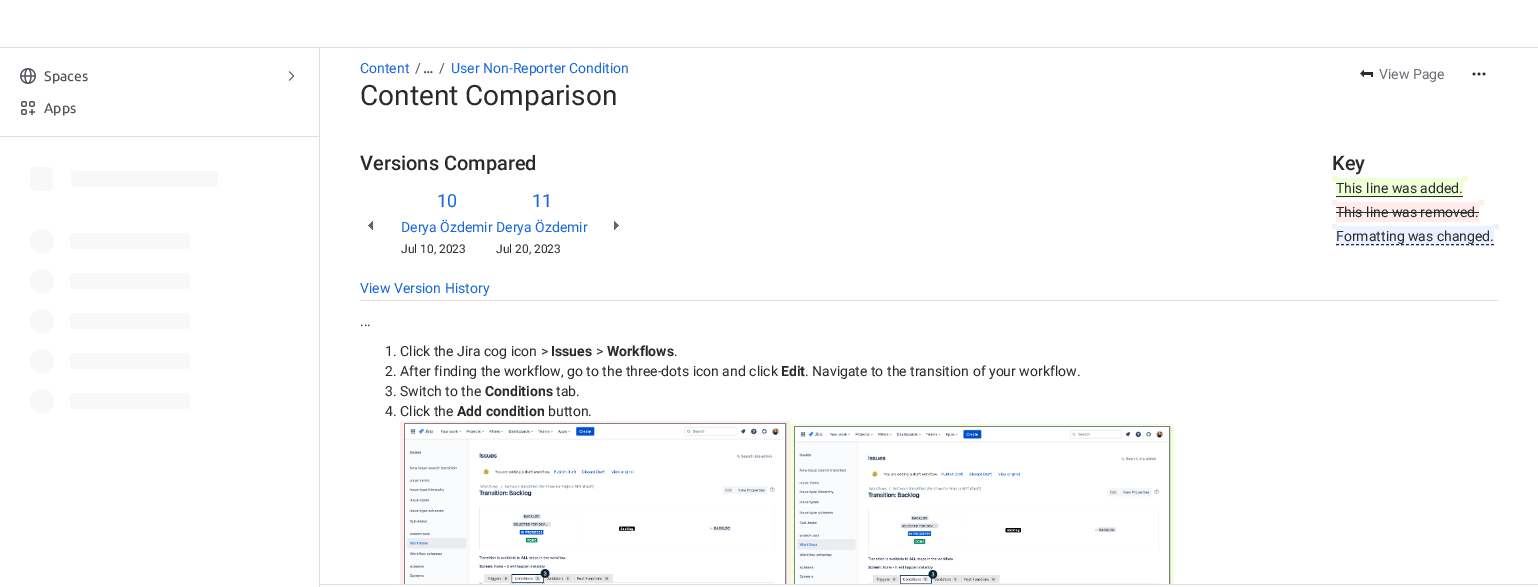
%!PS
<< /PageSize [1538 587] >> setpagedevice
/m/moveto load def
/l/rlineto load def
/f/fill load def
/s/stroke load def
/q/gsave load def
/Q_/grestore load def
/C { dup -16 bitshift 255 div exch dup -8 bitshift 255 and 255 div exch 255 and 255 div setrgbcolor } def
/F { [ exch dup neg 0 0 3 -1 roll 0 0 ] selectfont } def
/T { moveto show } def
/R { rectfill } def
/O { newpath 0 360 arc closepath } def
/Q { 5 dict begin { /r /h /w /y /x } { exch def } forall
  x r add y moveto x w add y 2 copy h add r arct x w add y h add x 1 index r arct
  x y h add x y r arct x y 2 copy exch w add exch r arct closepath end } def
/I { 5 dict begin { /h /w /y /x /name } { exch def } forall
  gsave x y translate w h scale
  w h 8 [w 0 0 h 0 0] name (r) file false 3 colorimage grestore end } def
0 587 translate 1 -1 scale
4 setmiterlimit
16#FFFFFF C
0 0 1538 587 R
16#DDDEDD C
0 47 1538 1 R
319 48 1 539 R
(1.rgb) 20 68 16 16 I
/Ubuntu-Medium 14 F
16#505258 C
(Spaces) 44 81 T
(2.rgb) 288 71 7 10 I
(3.rgb) 21 101 14 14 I
(Apps) 44 113 T
16#DDDEDD C
0 136 319 1 R
16#F8F8F8 C
30 167 23 24 6 Q f
71 171 147 16 4 Q f
42 241 12 O f
70 233 120 16 4 Q f
42 281 12 O f
70 273 120 16 4 Q f
42 321 12 O f
70 313 120 16 4 Q f
42 361 12 O f
70 353 120 16 4 Q f
42 401 12 O f
70 393 120 16 4 Q f
16#DDDEDD C
320 584 1218 1 R
/Roboto-Regular 14 F
16#1868DB C
(Content) 360 73 T
16#505258 C
(/) 415 73 T
/Roboto-Bold 14 F
(…) 423 73 T
/Roboto-Regular 14 F
(/) 439 73 T
16#1868DB C
(User Non-Reporter Condition) 451 73 T
/Roboto-Regular 28 F
16#292A2E C
(Content Comparison) 360 105 T
(4.rgb) 1360 69 13 9 I
/Roboto-Regular 14 F
16#6B6E76 C
(View Page) 1379 79 T
(5.rgb) 1472 72 14 4 I
16#DDDEDD C
360 300 1138 1 R
/Roboto-Medium 20 F
16#292A2E C
(Versions Compared) 360 170 T
(Key) 1332 170 T
16#EFFFD6 C
1332 176 5 5 R
1336 178 127 20 R
/Roboto-Regular 14 F
16#292A2E C
(This line was added.) 1336 193 T
16#EFFFD6 C
1463 176 5 5 R
16#292A2E C
1336 196 127 1 R
16#FFECEB C
1332 200 5 5 R
1336 202 143 20 R
16#292A2E C
(This line was removed.) 1336 217 T
16#FFECEB C
1479 200 5 5 R
16#292A2E C
1336 212 143 1 R
16#E9F2FE C
1332 224 5 5 R
1336 226 158 20 R
16#292A2E C
(Formatting was changed.) 1336 241 T
16#E9F2FE C
1494 224 5 5 R
16#292A2E C
[3 2] 0 setdash
1336 244.5 m 158 0 l s
/Roboto-Regular 18 F
16#1868DB C
(10) 437 207 T
(11) 532 207 T
/Roboto-Regular 14 F
(Derya Özdemir) 401 232 T
(Derya Özdemir) 496 232 T
/Roboto-Regular 12 F
16#292A2E C
(Jul 10, 2023) 401 253 T
(Jul 20, 2023) 496 253 T
(6.rgb) 368 221 5 9 I
(7.rgb) 614 221 5 9 I
/Roboto-Regular 14 F
16#1868DB C
(View Version History) 360 293 T
16#292A2E C
(...) 360 326 T
(1. Click the Jira cog icon >) 385 356 T
/Roboto-Bold 14 F
(Issues) 551 356 T
/Roboto-Regular 14 F
(>) 596 356 T
/Roboto-Bold 14 F
(Workflows) 607 356 T
/Roboto-Regular 14 F
(.) 674 356 T
(2. After finding the workflow, go to the three-dots icon and click) 385 376 T
/Roboto-Bold 14 F
(Edit) 781 376 T
/Roboto-Regular 14 F
(. Navigate to the transition of your workflow.) 805 376 T
(3. Switch to the) 385 396 T
/Roboto-Bold 14 F
(Conditions) 485 396 T
/Roboto-Regular 14 F
(tab.) 556 396 T
(4. Click the) 385 416 T
/Roboto-Bold 14 F
(Add condition) 457 416 T
/Roboto-Regular 14 F
(button.) 548 416 T
16#FFECEB C
400 421 390 163 R
q
320 48 1218 536 rectclip
16#7D818A C
[] 0 setdash
404.5 423.5 381 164 rectstroke
Q_
(8.rgb) 405 424 380 160 I
16#EFFFD6 C
790 424 384 160 R
q
320 48 1218 536 rectclip
16#7D818A C
[] 0 setdash
794.5 426.5 375 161 rectstroke
Q_
(9.rgb) 795 427 374 157 I
showpage
